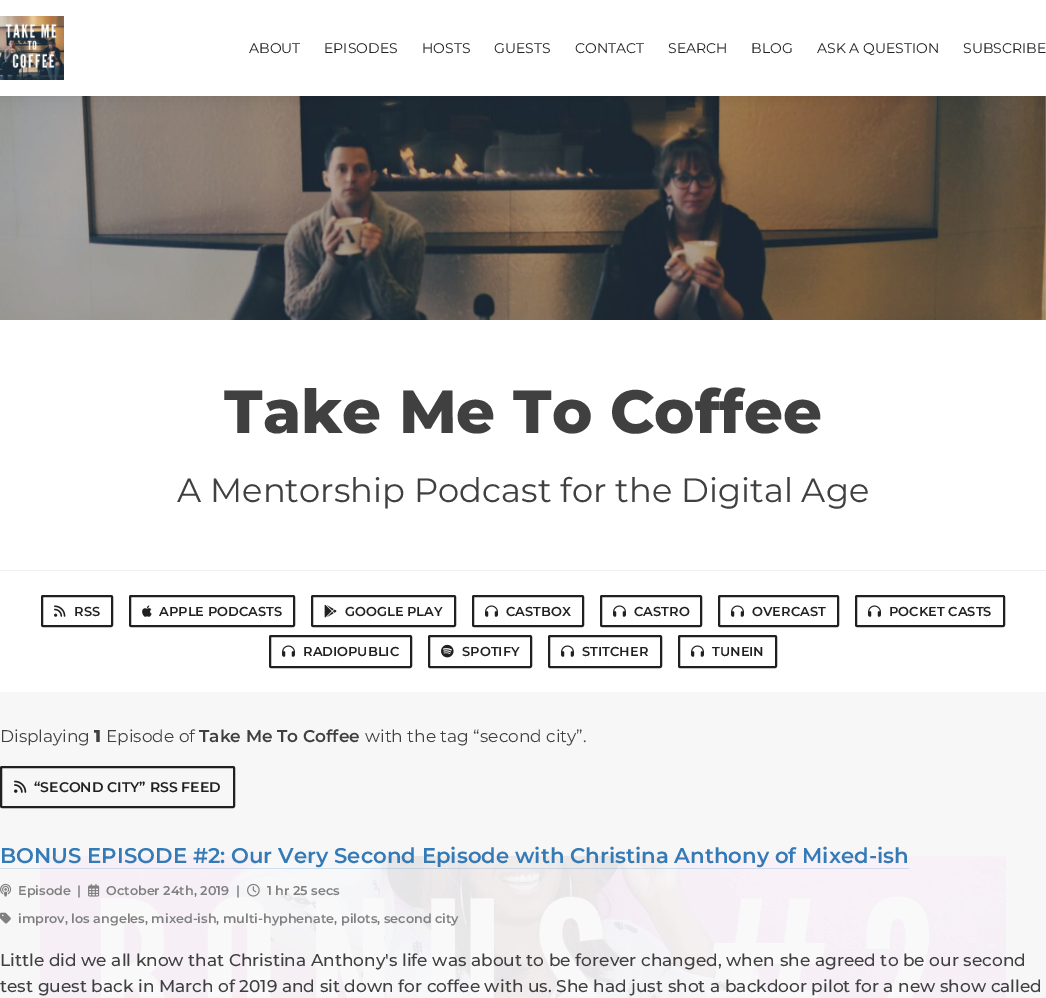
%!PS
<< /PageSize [1046 998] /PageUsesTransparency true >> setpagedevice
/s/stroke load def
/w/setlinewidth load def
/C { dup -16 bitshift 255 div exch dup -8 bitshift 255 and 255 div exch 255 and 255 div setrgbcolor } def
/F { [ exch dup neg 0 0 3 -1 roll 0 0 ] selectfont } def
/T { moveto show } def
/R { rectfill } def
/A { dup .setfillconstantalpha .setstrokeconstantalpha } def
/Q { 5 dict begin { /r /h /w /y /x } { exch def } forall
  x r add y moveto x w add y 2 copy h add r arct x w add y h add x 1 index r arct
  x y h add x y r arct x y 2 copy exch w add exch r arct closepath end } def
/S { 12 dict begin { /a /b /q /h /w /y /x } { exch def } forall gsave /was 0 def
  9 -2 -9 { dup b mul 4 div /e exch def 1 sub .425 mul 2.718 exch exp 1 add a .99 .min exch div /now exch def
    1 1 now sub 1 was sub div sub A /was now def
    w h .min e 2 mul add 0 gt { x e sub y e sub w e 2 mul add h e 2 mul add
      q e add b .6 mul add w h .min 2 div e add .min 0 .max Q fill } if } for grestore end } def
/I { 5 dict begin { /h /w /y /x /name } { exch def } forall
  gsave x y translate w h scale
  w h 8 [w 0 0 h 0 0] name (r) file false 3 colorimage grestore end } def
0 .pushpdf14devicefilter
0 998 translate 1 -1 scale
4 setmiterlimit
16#F7F7F7 C
0 0 1046 998 R
(2.rgb) 0 96 1046 224 I
16#000000 C
0 0 1046 96 0 8 .1 S
16#FFFFFF C
0 0 1046 96 R
(1.rgb) 0 16 64 64 I
/Montserrat-Regular 14 F
16#202020 C
(ABOUT) 249 53 T
(EPISODES) 324 53 T
(HOSTS) 422 53 T
(GUESTS) 494 53 T
(CONTACT) 575 53 T
(SEARCH) 668 53 T
(BLOG) 751 53 T
(ASK A QUESTION) 817 53 T
(SUBSCRIBE) 963 53 T
16#FFFFFF C
0 320 1046 250 R
16#F0F0F0 C
0 570 1046 1 R
/Montserrat-ExtraBold 60.75 F
16#404040 C
(Take Me To Coffee) 224 433 T
/Montserrat-Regular 33.75 F
(A Mentorship Podcast for the Digital Age) 177 502 T
16#FFFFFF C
0 571 1046 121 R
16#202020 C
2 w
42 596 70 30 1 Q s
(3.rgb) 54 605 12 12 I
/Montserrat-SemiBold 13 F
(RSS) 74 616 T
130 596 164 30 1 Q s
(4.rgb) 142 605 10 12 I
(APPLE PODCASTS) 159 616 T
312 596 143 30 1 Q s
(5.rgb) 324 604 13 14 I
(GOOGLE PLAY) 345 616 T
473 596 110 30 1 Q s
(6.rgb) 485 605 13 12 I
(CASTBOX) 506 616 T
601 596 100 30 1 Q s
(6.rgb) 613 605 13 12 I
(CASTRO) 634 616 T
719 596 119 30 1 Q s
(6.rgb) 731 605 13 12 I
(OVERCAST) 752 616 T
856 596 148 30 1 Q s
(6.rgb) 868 605 13 12 I
(POCKET CASTS) 889 616 T
270 636 141 31 1 Q s
(6.rgb) 282 645 13 12 I
(RADIOPUBLIC) 303 656 T
429 636 102 31 1 Q s
(7.rgb) 441 644 13 14 I
(SPOTIFY) 462 656 T
549 636 112 31 1 Q s
(6.rgb) 561 645 13 12 I
(STITCHER) 582 656 T
679 636 97 31 1 Q s
(6.rgb) 691 645 13 12 I
(TUNEIN) 712 656 T
/Montserrat-Regular 17 F
16#404040 C
(Displaying) 0 742 T
/Montserrat-ExtraBold 17 F
(1) 94 742 T
/Montserrat-Regular 17 F
(Episode of) 106 742 T
/Montserrat-SemiBold 17 F
(Take Me To Coffee) 199 742 T
/Montserrat-Regular 17 F
(with the tag “second city”.) 365 742 T
16#202020 C
1 767 233 40 1 Q s
(8.rgb) 14 780 13 13 I
/Montserrat-SemiBold 14 F
(“SECOND CITY” RSS FEED) 34 792 T
(13.rgb) 40 856 966 142 I
/Montserrat-SemiBold 21.25 F
16#337AB7 C
(BONUS EPISODE #2: Our Very Second Episode with Christina Anthony of Mixed-ish) 0 863 T
0.2 A
0 868 909 1 R
1 A
(9.rgb) 0 883 12 14 I
/Montserrat-SemiBold 12.75 F
16#808080 C
(Episode  |) 18 895 T
(10.rgb) 88 883 12 14 I
(October 24th, 2019) 106 895 T
(|) 236 895 T
(11.rgb) 247 883 13 14 I
(1 hr 25 secs) 267 895 T
(12.rgb) 0 912 11 12 I
(improv, los angeles, mixed-ish, multi-hyphenate, pilots, second city) 18 923 T
/Montserrat-Medium 17 F
16#404040 C
(Little did we all know that Christina Anthony's life was about to be forever changed, when she agreed to be our second) 0 966 T
(test guest back in March of 2019 and sit down for coffee with us. She had just shot a backdoor pilot for a new show called) 0 992 T
.poppdf14devicefilter showpage
